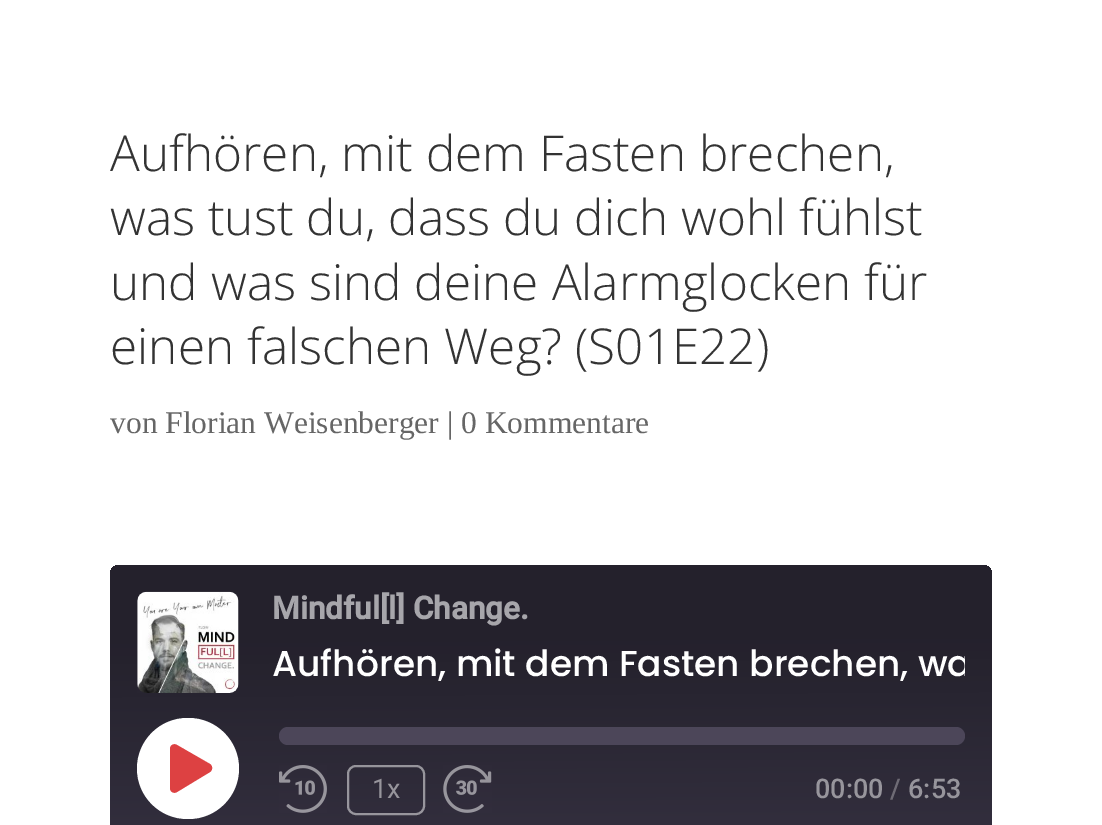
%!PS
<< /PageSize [1102 825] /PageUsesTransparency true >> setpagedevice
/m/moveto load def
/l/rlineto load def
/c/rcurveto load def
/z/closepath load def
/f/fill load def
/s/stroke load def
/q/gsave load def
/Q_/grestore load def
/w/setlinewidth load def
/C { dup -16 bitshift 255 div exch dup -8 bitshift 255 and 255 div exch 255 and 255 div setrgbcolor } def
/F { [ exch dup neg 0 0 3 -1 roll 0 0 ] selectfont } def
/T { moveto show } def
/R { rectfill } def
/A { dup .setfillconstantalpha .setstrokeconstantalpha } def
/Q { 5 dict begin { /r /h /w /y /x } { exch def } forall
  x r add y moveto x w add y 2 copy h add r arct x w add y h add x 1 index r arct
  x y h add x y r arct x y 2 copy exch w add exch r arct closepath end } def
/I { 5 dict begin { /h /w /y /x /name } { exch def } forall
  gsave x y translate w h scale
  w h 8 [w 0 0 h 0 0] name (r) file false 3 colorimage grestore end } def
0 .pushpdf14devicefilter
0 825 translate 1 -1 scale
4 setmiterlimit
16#FFFFFF C
0 0 1102 825 R
/OpenSans-Light 49.5 F
16#333333 C
(Aufhören, mit dem Fasten brechen,) 110 171 T
(was tust du, dass du dich wohl fühlst) 110 235 T
(und was sind deine Alarmglocken für) 110 300 T
(einen falschen Weg? \(S01E22\)) 110 364 T
/LiberationSerif-Regular 31.5 F
16#666666 C
(von Florian Weisenberger | 0 Kommentare) 110 433 T
q 110 565 882 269 9 Q clip newpath
<< /ShadingType 2 /ColorSpace /DeviceRGB /Coords [552 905 550 562] /Extend [true true] /Function << /FunctionType 3 /Domain [0 1] /Functions [<< /FunctionType 2 /Domain [0 1] /C0 [.22 .2 .267] /C1 [.22 .2 .267] /N 1 >> << /FunctionType 2 /Domain [0 1] /C0 [.22 .2 .267] /C1 [.141 .129 .173] /N 1 >> << /FunctionType 2 /Domain [0 1] /C0 [.141 .129 .173] /C1 [.141 .129 .173] /N 1 >>] /Bounds [.01 .78] /Encode [0 1 0 1 0 1] >> >> shfill Q_
(1.rgb) 137 591 102 102 I
/Roboto-Bold 31.5 F
16#A7A6AB C
(Mindful[l] Change.) 272 619 T
q
272 644 693 56 rectclip
/Poppins-Medium 36 F
16#FFFFFF C
(Aufhören, mit dem Fasten brechen, wa) 272 676 T
Q_
16#FFFFFF C
137 718 102 101 50.5 Q f
16#DD4142 C
210 764 m -33 -19 l -3 -2 -7 0 -7 4 c 0 39 l 0 4 4 6 7 4 c 33 -20 l 3 -2 3 -6 0 -8 c z f
16#4C4659 C
279 727 686 18 9 Q f
(2.rgb) 279 765 48 48 I
0.5 A
16#FFFFFF C
2 w
348 766 76 48 8 Q s
/Roboto-Regular 27 F
1 A
16#97959C C
(1x) 372 798 T
(3.rgb) 443 765 49 48 I
/Roboto-Medium 27 F
(00:00) 815 798 T
16#6E6B75 C
(/) 890 798 T
16#97959C C
(6:53) 908 798 T
.poppdf14devicefilter showpage
